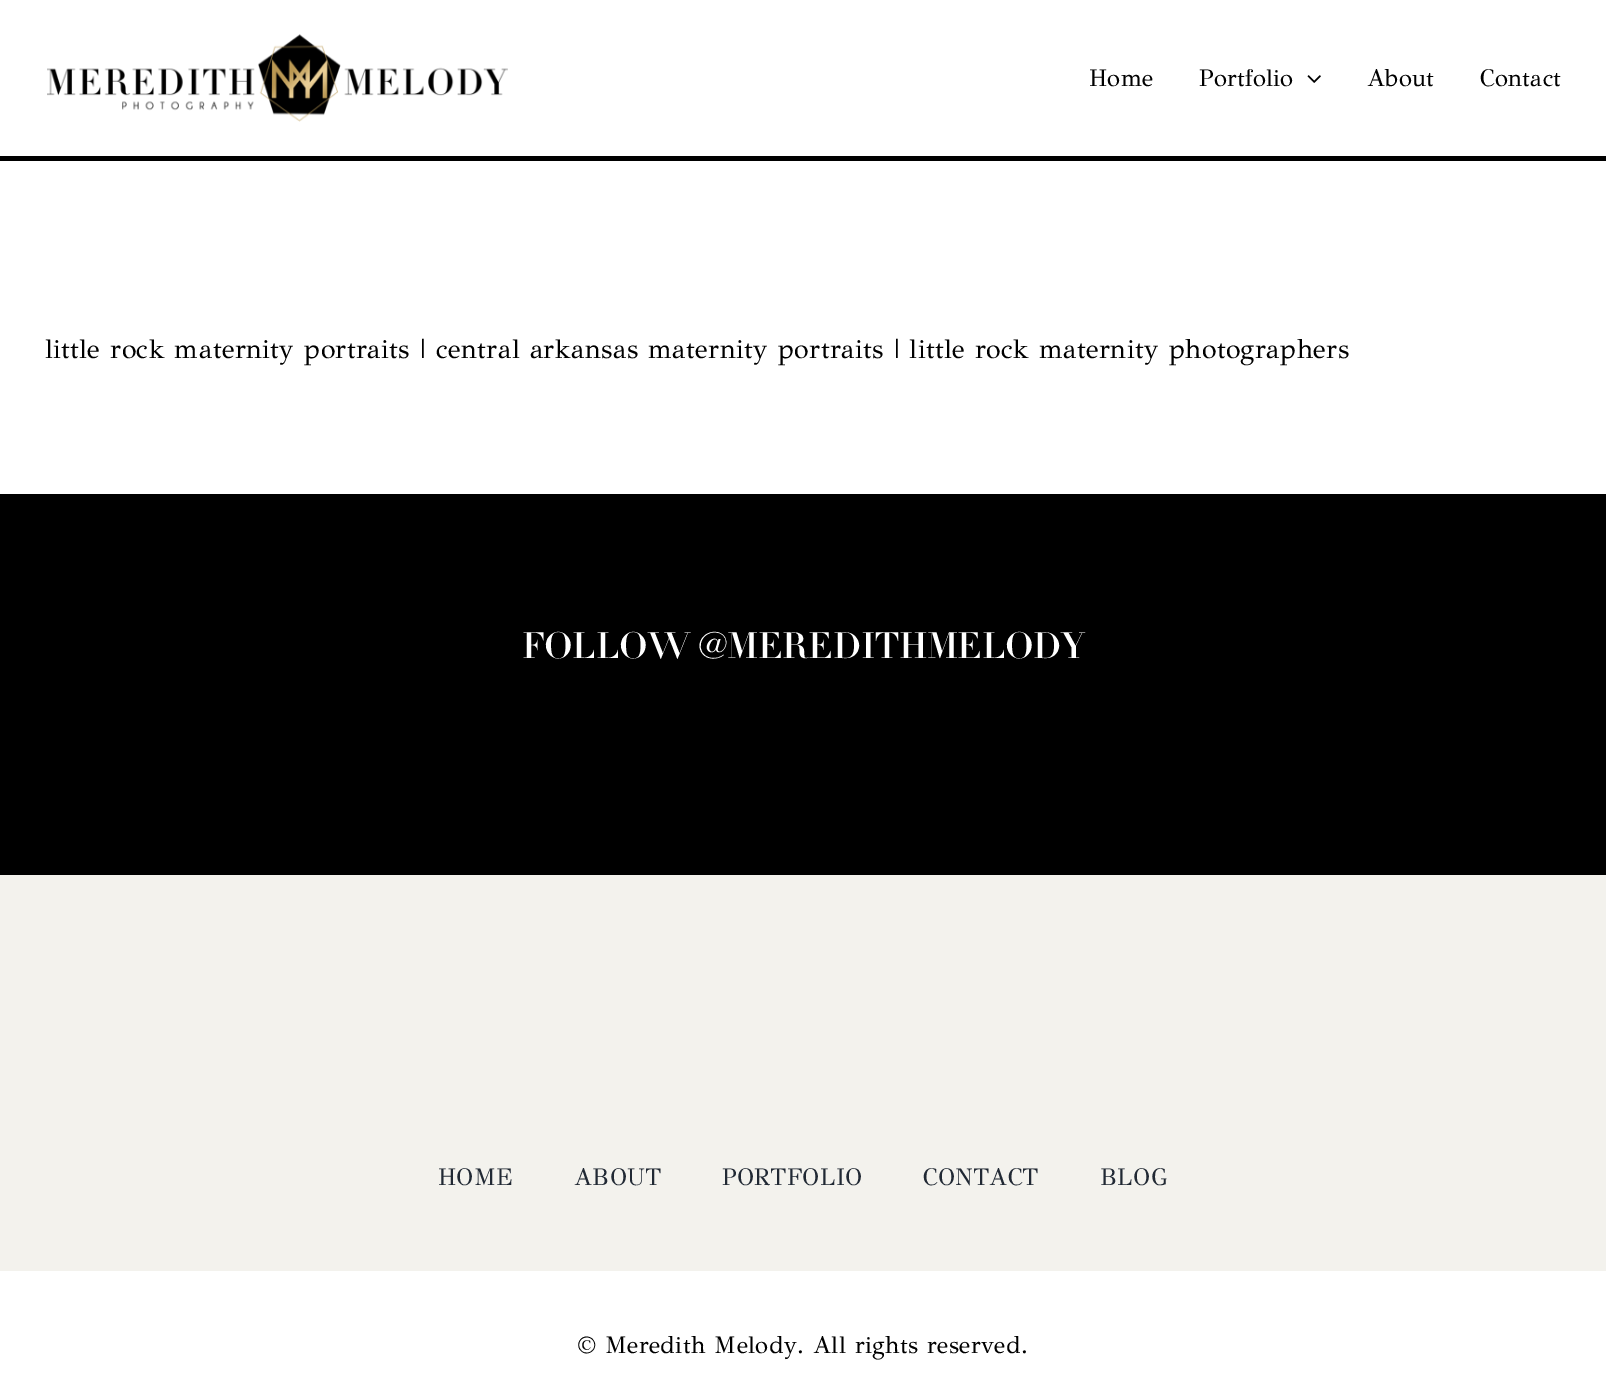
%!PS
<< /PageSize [1606 1387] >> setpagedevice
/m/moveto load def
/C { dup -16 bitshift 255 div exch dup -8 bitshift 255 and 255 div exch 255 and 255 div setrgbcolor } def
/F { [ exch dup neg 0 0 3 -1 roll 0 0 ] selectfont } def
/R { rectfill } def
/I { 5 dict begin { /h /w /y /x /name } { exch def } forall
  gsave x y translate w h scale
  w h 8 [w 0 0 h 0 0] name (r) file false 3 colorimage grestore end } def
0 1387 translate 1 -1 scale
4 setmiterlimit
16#FFFFFF C
0 0 1606 1387 R
16#000000 C
0 156 1606 5 R
(1.rgb) 47 34 461 88 I
/GFSDidot-Regular 24 F
1089 86 m .25 0 (Home) ashow
1199 86 m .25 0 (Portfolio) ashow
(2.rgb) 1307 75 14 8 I
1367 86 m .25 0 (About) ashow
1480 86 m .25 0 (Contact) ashow
/GFSDidot-Regular 27 F
45 358 m .41 0 (little rock maternity portraits | central arkansas maternity portraits | little rock maternity photographers) ashow
0 494 1606 381 R
/Didot-Regular 36 F
16#FFFFFF C
522 658 m -.5 0 (FOLLOW @MEREDITHMELODY) ashow
16#F3F2ED C
0 875 1606 396 R
/GFSDidot-Regular 24 F
16#212934 C
438 1185 m .25 0 (HOME) ashow
574 1185 m .25 0 (ABOUT) ashow
722 1185 m .25 0 (PORTFOLIO) ashow
923 1185 m .25 0 (CONTACT) ashow
1100 1185 m .25 0 (BLOG) ashow
16#000000 C
578 1353 m .41 0 (© Meredith Melody. All rights reserved.) ashow
showpage
